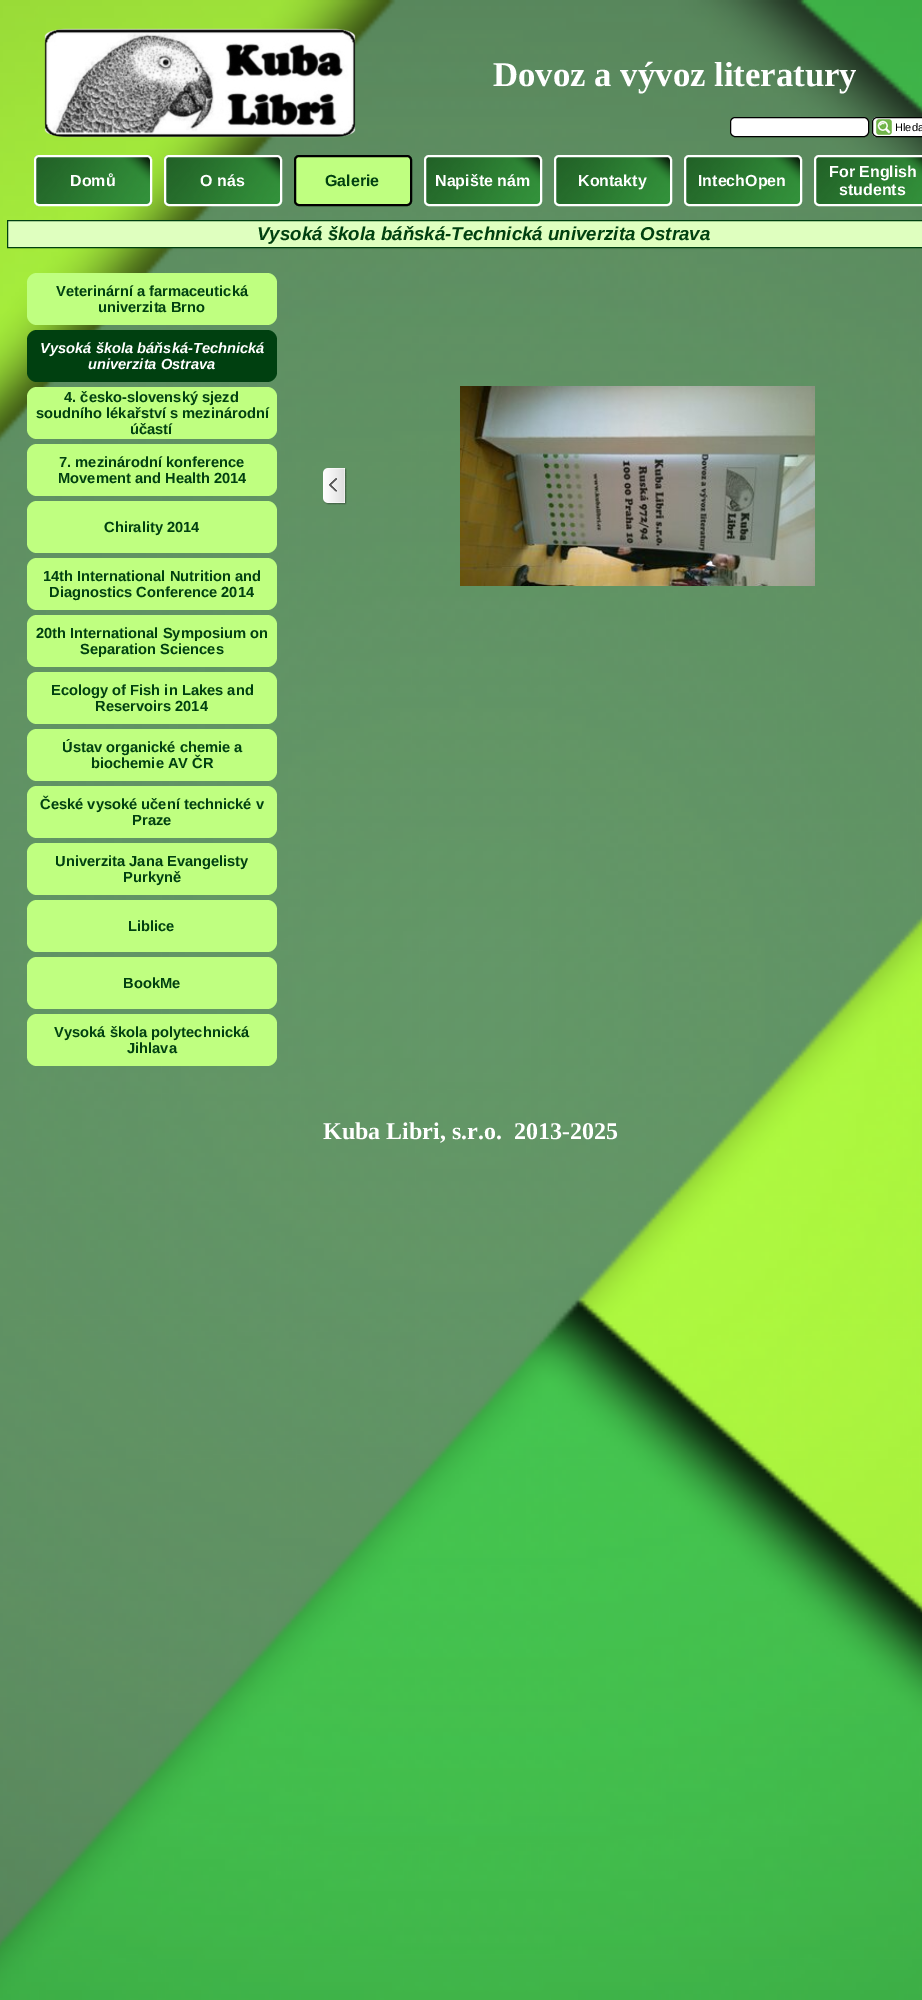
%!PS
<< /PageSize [922 2000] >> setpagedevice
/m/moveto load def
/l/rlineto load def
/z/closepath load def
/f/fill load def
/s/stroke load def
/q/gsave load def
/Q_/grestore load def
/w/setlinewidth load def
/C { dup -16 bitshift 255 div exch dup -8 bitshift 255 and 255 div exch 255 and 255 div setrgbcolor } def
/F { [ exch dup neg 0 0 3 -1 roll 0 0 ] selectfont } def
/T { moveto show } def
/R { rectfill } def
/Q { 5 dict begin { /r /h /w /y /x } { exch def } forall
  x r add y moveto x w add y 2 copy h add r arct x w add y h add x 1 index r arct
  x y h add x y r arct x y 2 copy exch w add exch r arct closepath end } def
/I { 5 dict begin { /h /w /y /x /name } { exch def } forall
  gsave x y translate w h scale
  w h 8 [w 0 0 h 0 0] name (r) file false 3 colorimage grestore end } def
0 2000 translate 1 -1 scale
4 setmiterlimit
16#FFFFFF C
0 0 922 2000 R
(1.rgb) 0 0 922 2000 I
(2.rgb) 44 28 312 110 I
/LiberationSerif-Bold 34.75 F
(Dovoz a vývoz literatury) 493 86 T
730.5 117.5 138 19 4.5 Q q f Q_
16#000000 C
s
16#FFFFFF C
872 117 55 20 5 Q f
(3.rgb) 876 119 16 16 I
16#000000 C
872.5 117.5 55 19 4.5 Q s
/LiberationSans-Regular 11 F
(Hleda) 895 131 T
(4.rgb) 34 155 118 51 I
16#FFFFFF C
2 w
35 156 116 49 4 Q s
/LiberationSans-Bold 16 F
(Domů) 70 186 T
(5.rgb) 164 155 118 51 I
165 156 116 49 4 Q s
(O nás) 200 186 T
16#BFFF80 C
295 156 116 49 4 Q q f Q_
16#000000 C
s
16#004010 C
(Galerie) 325 186 T
(6.rgb) 424 155 118 51 I
16#FFFFFF C
425 156 116 49 4 Q s
(Napište nám) 435 186 T
(7.rgb) 554 155 118 51 I
555 156 116 49 4 Q s
(Kontakty) 578 186 T
(8.rgb) 684 155 118 51 I
685 156 116 49 4 Q s
(IntechOpen) 698 186 T
(9.rgb) 814 155 108 51 I
815 156 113 49 4 Q s
(For English) 829 177 T
(students) 839 195 T
16#DFFFBF C
7.5 220.5 m 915 0 l 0 27 l -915 0 l z q f Q_
16#004010 C
1 w
s
/LiberationSans-BoldItalic 18.7 F
(Vysoká škola báňská-Technická univerzita Ostrava) 257 240 T
16#BFFF80 C
27 273 250 52 10 Q f
/LiberationSans-Bold 14.7 F
16#004010 C
(Veterinární a farmaceutická) 56 296 T
(univerzita Brno) 98 312 T
27 330 250 52 10 Q f
/LiberationSans-BoldItalic 14.7 F
16#FFFFFF C
(Vysoká škola báňská-Technická) 40 353 T
(univerzita Ostrava) 88 369 T
16#BFFF80 C
27 387 250 52 10 Q f
/LiberationSans-Bold 14.7 F
16#004010 C
(4. česko-slovenský sjezd) 64 402 T
(soudního lékařství s mezinárodní) 36 418 T
(účastí) 130 434 T
16#BFFF80 C
27 444 250 52 10 Q f
16#004010 C
(7. mezinárodní konference) 59 467 T
(Movement and Health 2014) 58 483 T
16#BFFF80 C
27 501 250 52 10 Q f
16#004010 C
(Chirality 2014) 104 532 T
16#BFFF80 C
27 558 250 52 10 Q f
16#004010 C
(14th International Nutrition and) 43 581 T
(Diagnostics Conference 2014) 49 597 T
16#BFFF80 C
27 615 250 52 10 Q f
16#004010 C
(20th International Symposium on) 36 638 T
(Separation Sciences) 80 654 T
16#BFFF80 C
27 672 250 52 10 Q f
16#004010 C
(Ecology of Fish in Lakes and) 51 695 T
(Reservoirs 2014) 95 711 T
16#BFFF80 C
27 729 250 52 10 Q f
16#004010 C
(Ústav organické chemie a) 62 752 T
(biochemie AV ČR) 91 768 T
16#BFFF80 C
27 786 250 52 10 Q f
16#004010 C
(České vysoké učení technické v) 40 809 T
(Praze) 132 825 T
16#BFFF80 C
27 843 250 52 10 Q f
16#004010 C
(Univerzita Jana Evangelisty) 55 866 T
(Purkyně) 123 882 T
16#BFFF80 C
27 900 250 52 10 Q f
16#004010 C
(Liblice) 128 931 T
16#BFFF80 C
27 957 250 52 10 Q f
16#004010 C
(BookMe) 123 988 T
16#BFFF80 C
27 1014 250 52 10 Q f
16#004010 C
(Vysoká škola polytechnická) 54 1037 T
(Jihlava) 127 1053 T
(10.rgb) 323 468 24 37 I
(11.rgb) 460 386 355 200 I
/LiberationSerif-Bold 24 F
16#FFFFFF C
(Kuba Libri, s.r.o.  2013-2025) 323 1139 T
showpage
